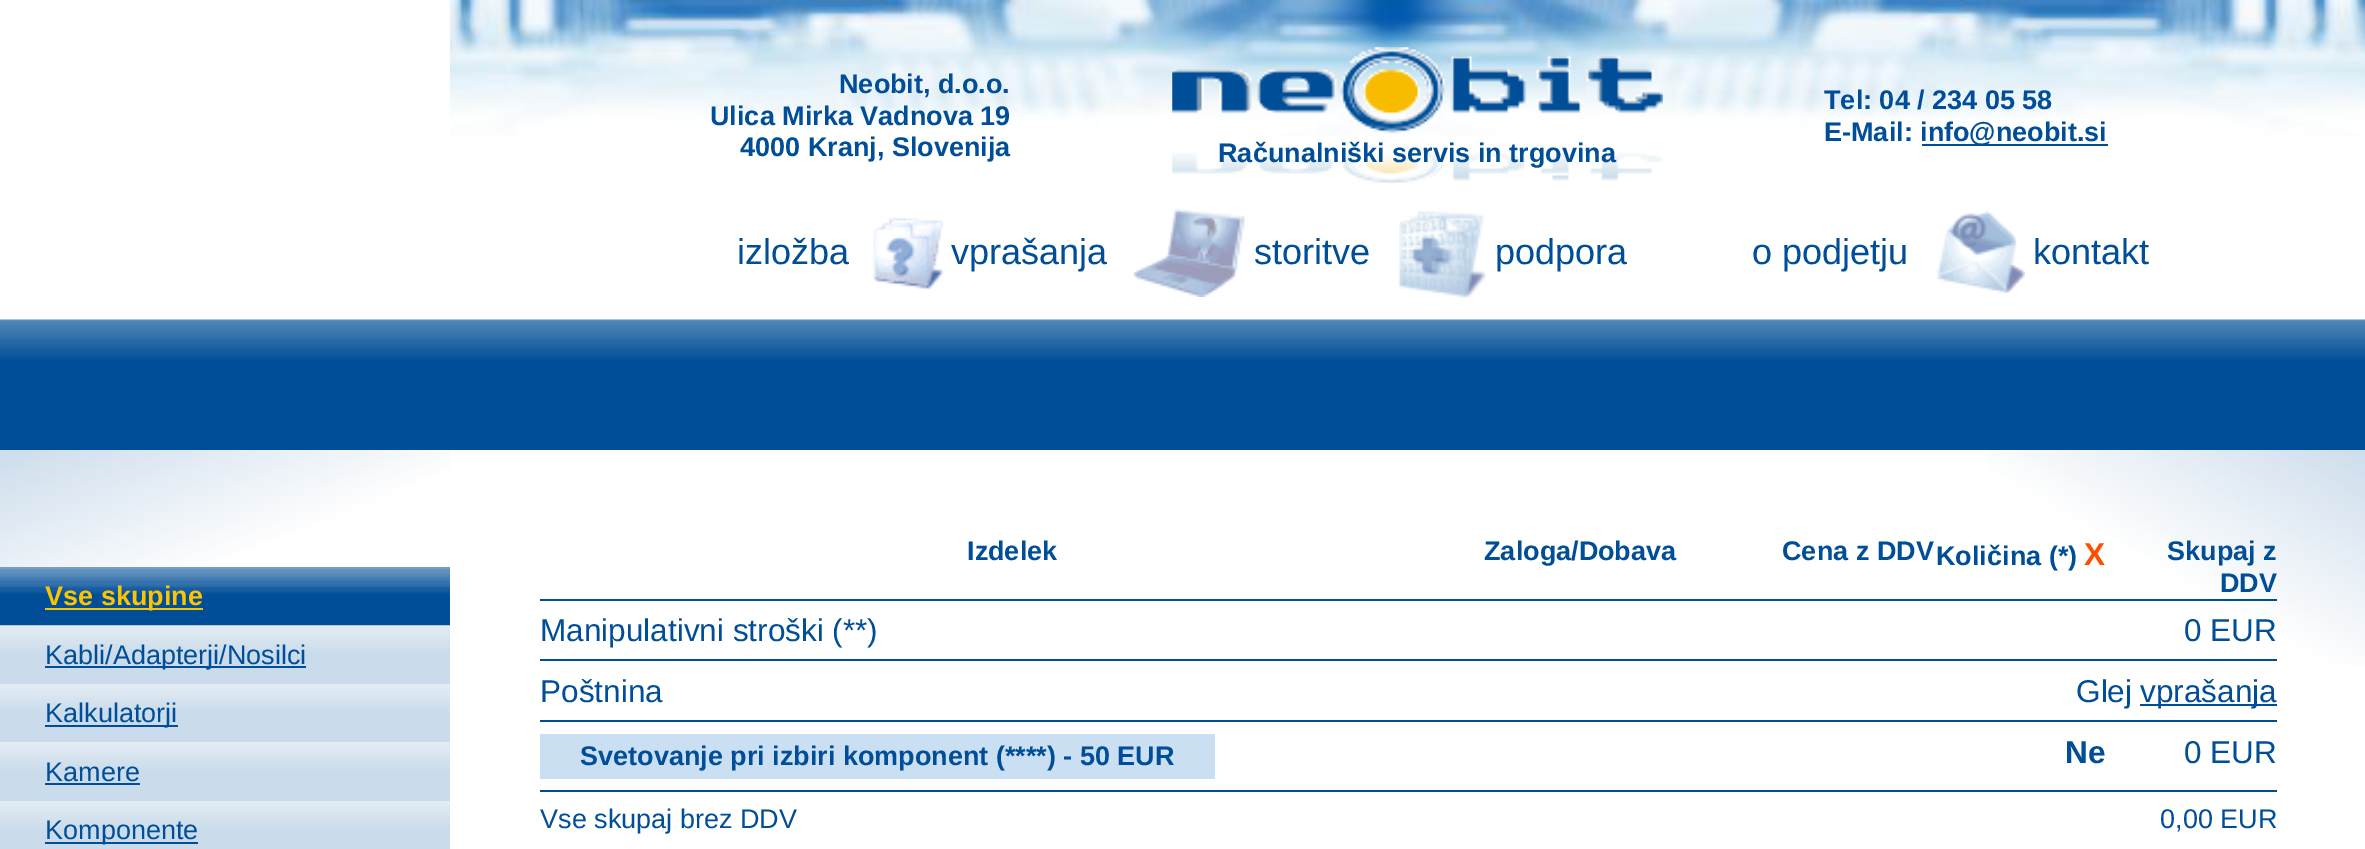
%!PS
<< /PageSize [2365 849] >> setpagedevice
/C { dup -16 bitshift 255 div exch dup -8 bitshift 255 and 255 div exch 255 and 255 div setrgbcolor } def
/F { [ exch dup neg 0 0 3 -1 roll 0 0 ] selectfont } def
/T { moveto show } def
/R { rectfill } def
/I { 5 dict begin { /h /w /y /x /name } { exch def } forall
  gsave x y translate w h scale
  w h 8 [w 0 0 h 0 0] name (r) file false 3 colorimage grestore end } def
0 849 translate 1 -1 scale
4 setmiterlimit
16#FFFFFF C
0 0 2365 849 R
(1.rgb) 450 319 1915 131 I
(2.rgb) 450 0 1915 136 I
/LiberationSans-Bold 27 F
16#004E98 C
(Neobit, d.o.o.) 839 93 T
(Ulica Mirka Vadnova 19) 710 125 T
(4000 Kranj, Slovenija) 740 156 T
(Tel: 04 / 234 05 58) 1824 109 T
(E-Mail:) 1824 141 T
1922 144 186 2 R
(info@neobit.si) 1920 141 T
(3.rgb) 1172 47 491 138 I
(Računalniški servis in trgovina) 1218 162 T
/LiberationSans-Regular 36 F
(izložba) 737 264 T
(4.rgb) 873 218 70 72 I
(vprašanja) 951 264 T
(5.rgb) 1133 209 112 88 I
(storitve) 1254 264 T
(6.rgb) 1399 211 87 87 I
(podpora) 1495 264 T
(o podjetju) 1752 264 T
(7.rgb) 1936 211 89 83 I
(kontakt) 2033 264 T
(8.rgb) 0 319 450 131 I
(9.rgb) 0 450 450 117 I
(10.rgb) 0 567 450 59 I
16#FFC400 C
45 608 158 2 R
/LiberationSans-Bold 27 F
(Vse skupine) 45 605 T
(11.rgb) 0 625 450 59 I
16#004E98 C
45 666 261 2 R
/LiberationSans-Regular 27 F
(Kabli/Adapterji/Nosilci) 45 664 T
(12.rgb) 0 684 450 59 I
45 725 133 2 R
(Kalkulatorji) 45 722 T
(13.rgb) 0 743 450 58 I
(Kamere) 45 781 T
45 783 95 2 R
(14.rgb) 0 801 450 48 I
45 842 153 2 R
(Komponente) 45 839 T
(15.rgb) 1988 450 377 215 I
/LiberationSans-Bold 27 F
(Izdelek) 967 560 T
(Zaloga/Dobava) 1484 560 T
(Cena z DDV) 1782 560 T
(Količina \(*\)) 1936 565 T
/LiberationSans-Bold 31.5 F
16#FF4E00 C
(X) 2084 565 T
/LiberationSans-Bold 27 F
16#004E98 C
(Skupaj z) 2167 560 T
(DDV) 2220 592 T
540 599 1737 2 R
/LiberationSans-Regular 31.5 F
(Manipulativni stroški \(**\)) 540 641 T
(0 EUR) 2184 641 T
540 659 1737 2 R
(Poštnina) 540 702 T
(Glej) 2076 702 T
2140 704 137 2 R
(vprašanja) 2140 702 T
540 720 1737 2 R
16#CBDFF2 C
540 734 675 45 R
/LiberationSans-Bold 27 F
16#004E98 C
(Svetovanje pri izbiri komponent \(****\) - 50 EUR) 580 765 T
/LiberationSans-Bold 31.5 F
(Ne) 2065 763 T
/LiberationSans-Regular 31.5 F
(0 EUR) 2184 763 T
540 790 1737 2 R
/LiberationSans-Regular 27 F
(Vse skupaj brez DDV) 540 828 T
(0,00 EUR) 2160 828 T
showpage
